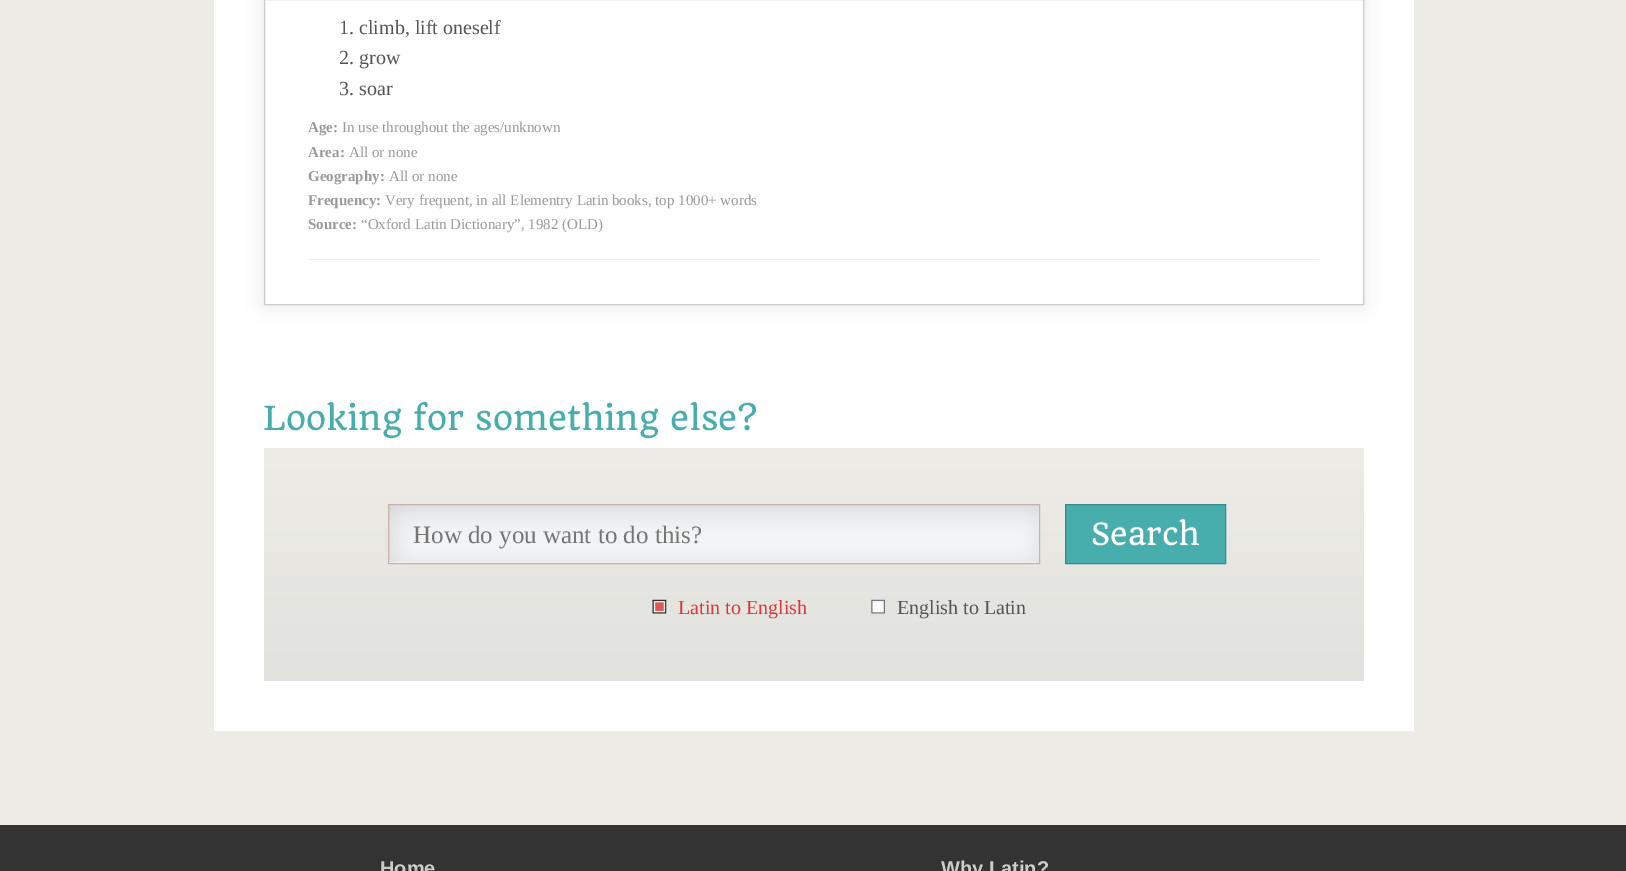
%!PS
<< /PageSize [1626 871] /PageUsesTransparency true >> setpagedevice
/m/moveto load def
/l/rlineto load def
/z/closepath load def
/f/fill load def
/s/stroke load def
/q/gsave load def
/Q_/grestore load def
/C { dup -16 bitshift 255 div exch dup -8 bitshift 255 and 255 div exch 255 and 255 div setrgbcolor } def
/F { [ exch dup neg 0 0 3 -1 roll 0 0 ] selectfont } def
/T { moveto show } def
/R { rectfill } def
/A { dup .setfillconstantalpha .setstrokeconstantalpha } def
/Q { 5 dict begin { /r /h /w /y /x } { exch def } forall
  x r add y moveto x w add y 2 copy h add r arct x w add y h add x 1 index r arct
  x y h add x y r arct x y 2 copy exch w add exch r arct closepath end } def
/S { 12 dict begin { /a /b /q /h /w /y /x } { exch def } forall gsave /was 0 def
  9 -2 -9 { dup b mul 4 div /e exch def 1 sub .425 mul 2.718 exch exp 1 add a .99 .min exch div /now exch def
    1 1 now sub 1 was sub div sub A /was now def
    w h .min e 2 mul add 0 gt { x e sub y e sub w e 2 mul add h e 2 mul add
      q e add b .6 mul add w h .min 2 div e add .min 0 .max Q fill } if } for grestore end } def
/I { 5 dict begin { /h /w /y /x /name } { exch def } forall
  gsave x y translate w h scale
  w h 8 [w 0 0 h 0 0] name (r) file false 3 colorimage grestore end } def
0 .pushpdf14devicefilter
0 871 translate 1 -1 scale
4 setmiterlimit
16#333333 C
0 0 1626 871 R
16#EDECE6 C
0 0 1626 825 R
16#FFFFFF C
214 0 1200 731 R
16#000000 C
264 -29 1100 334 0 9.5 .1 S
16#FFFFFF C
264.5 -.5 m 1099 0 l 0 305 l -1099 0 l z q f Q_
16#CCCCCC C
s
16#EEEEEE C
309 259 1010 1 R
/LiberationSerif-Regular 20 F
16#555555 C
(1. climb, lift oneself) 339 34 T
(2. grow) 339 64 T
(3. soar) 339 95 T
/LiberationSerif-Bold 15 F
16#999999 C
(Age:) 308 132 T
/LiberationSerif-Regular 15 F
(In use throughout the ages/unknown) 342 132 T
/LiberationSerif-Bold 15 F
(Area:) 308 157 T
/LiberationSerif-Regular 15 F
(All or none) 349 157 T
/LiberationSerif-Bold 15 F
(Geography:) 308 181 T
/LiberationSerif-Regular 15 F
(All or none) 389 181 T
/LiberationSerif-Bold 15 F
(Frequency:) 308 205 T
/LiberationSerif-Regular 15 F
(Very frequent, in all Elementry Latin books, top 1000+ words) 385 205 T
/LiberationSerif-Bold 15 F
(Source:) 308 229 T
/LiberationSerif-Regular 15 F
(“Oxford Latin Dictionary”, 1982 \(OLD\)) 361 229 T
/Quando-Regular 32.5 F
16#47ADAD C
(Looking for something else?) 263 430 T
q 264 448 m 1100 0 l 0 233 l -1100 0 l z clip newpath
<< /ShadingType 2 /ColorSpace /DeviceRGB /Coords [814 447 814 681] /Extend [true true] /Function << /FunctionType 2 /Domain [0 1] /C0 [.929 .925 .902] /C1 [.886 .886 .871] /N 1 >> >> shfill Q_
16#EEEEEE C
389 505 650 58 R
(1.rgb) 389 505 650 57 I
16#C6B1B1 C
388.5 504.5 651 59 rectstroke
/LiberationSerif-Regular 25 F
16#757575 C
(How do you want to do this?) 413 543 T
16#47ADAD C
1065.5 504.5 m 160 0 l 0 59 l -160 0 l z q f Q_
16#348C8C C
s
/Quando-Regular 30 F
16#FFFFFF C
(Search) 1091 545 T
(2.rgb) 652 599 15 15 I
/LiberationSerif-Regular 20 F
16#DA3737 C
(Latin to English) 678 614 T
(3.rgb) 871 599 14 15 I
16#555555 C
(English to Latin) 897 614 T
/LiberationSans-Bold 20 F
16#CCCCCC C
(Home) 380 875 T
(Why Latin?) 941 875 T
.poppdf14devicefilter showpage
